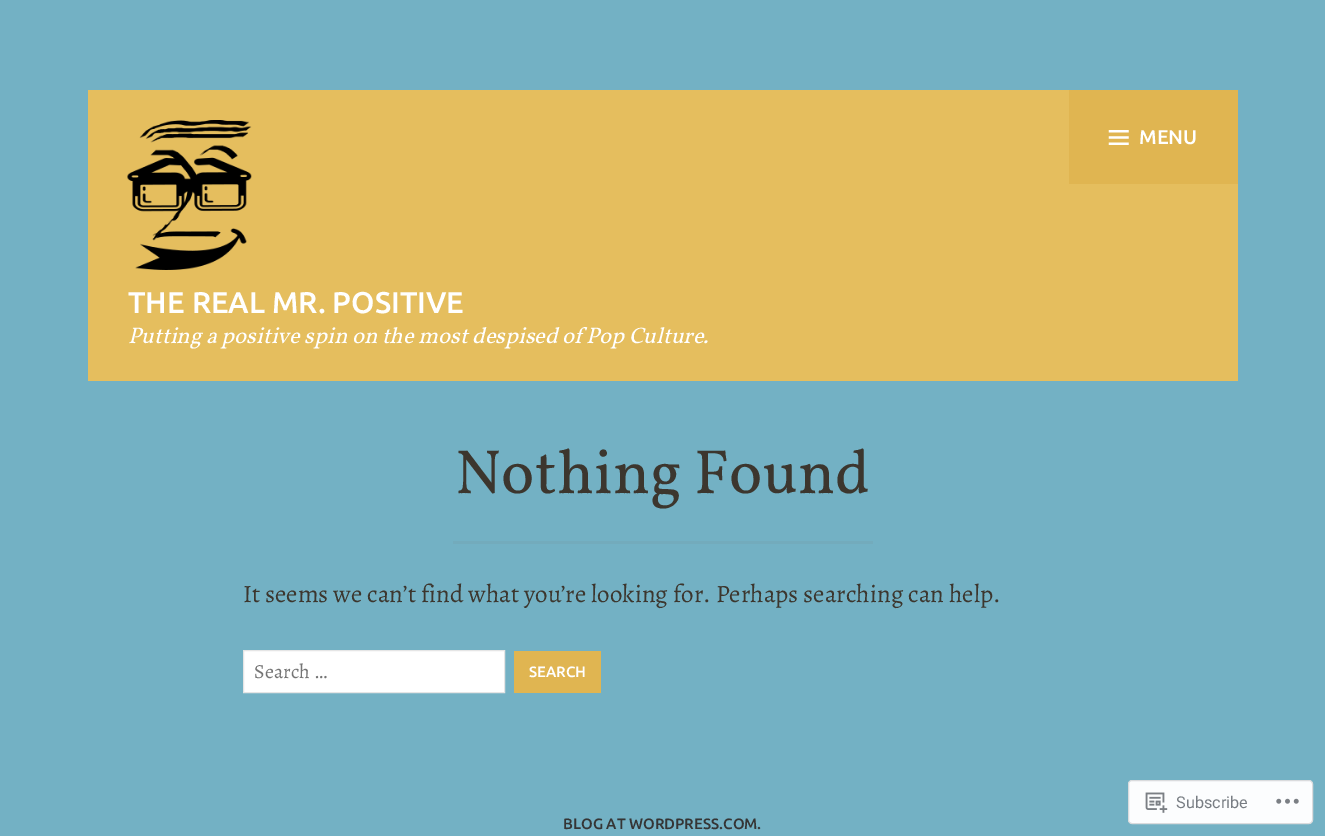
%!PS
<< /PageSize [1325 836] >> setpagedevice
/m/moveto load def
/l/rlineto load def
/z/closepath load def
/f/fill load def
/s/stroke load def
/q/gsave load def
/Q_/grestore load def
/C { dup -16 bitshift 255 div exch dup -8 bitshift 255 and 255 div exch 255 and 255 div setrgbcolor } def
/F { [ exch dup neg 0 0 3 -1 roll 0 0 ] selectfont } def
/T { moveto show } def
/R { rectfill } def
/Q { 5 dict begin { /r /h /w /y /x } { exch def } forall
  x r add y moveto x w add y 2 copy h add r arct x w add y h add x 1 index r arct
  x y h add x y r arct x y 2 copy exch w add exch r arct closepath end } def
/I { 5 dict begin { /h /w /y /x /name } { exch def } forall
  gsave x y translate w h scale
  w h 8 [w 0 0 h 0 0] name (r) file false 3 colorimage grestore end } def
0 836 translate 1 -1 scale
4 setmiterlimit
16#73B1C4 C
0 0 1325 836 R
16#E5BE5E C
88 90 1150 291 R
16#E0B551 C
1069 90 169 94 R
(1.rgb) 1108 130 21 15 I
/Ubuntu-Medium 20 F
16#FFFFFF C
(MENU) 1139 144 T
(2.rgb) 127 120 125 150 I
/Ubuntu-Medium 30 F
(THE REAL MR. POSITIVE) 128 313 T
/Vollkorn-Italic 22.5 F
(Putting a positive spin on the most despised of Pop Culture.) 128 343 T
/Vollkorn-Regular 62.5 F
16#3C362E C
(Nothing Found) 455 493 T
16#73ABBC C
453 541 420 3 R
/Alegreya-Regular 25 F
16#3C362E C
(It seems we can’t find what you’re looking for. Perhaps searching can help.) 243 602 T
16#FFFFFF C
243.5 650.5 m 261 0 l 0 42 l -261 0 l z q f Q_
16#E5E5E5 C
s
/Alegreya-Regular 20 F
16#757575 C
(Search …) 254 678 T
16#E0B551 C
514 651 87 42 R
/Ubuntu-Medium 15 F
16#FFFFFF C
(SEARCH) 529 677 T
16#353535 C
(BLOG AT WORDPRESS.COM.) 563 829 T
16#FCFDFE C
1128.5 780.5 184 43 3.5 Q q f Q_
16#DADBDD C
s
(3.rgb) 1145 792 23 21 I
/Roboto-Regular 16.25 F
16#787D83 C
(Subscribe) 1176 808 T
(4.rgb) 1276 798 23 6 I
showpage
